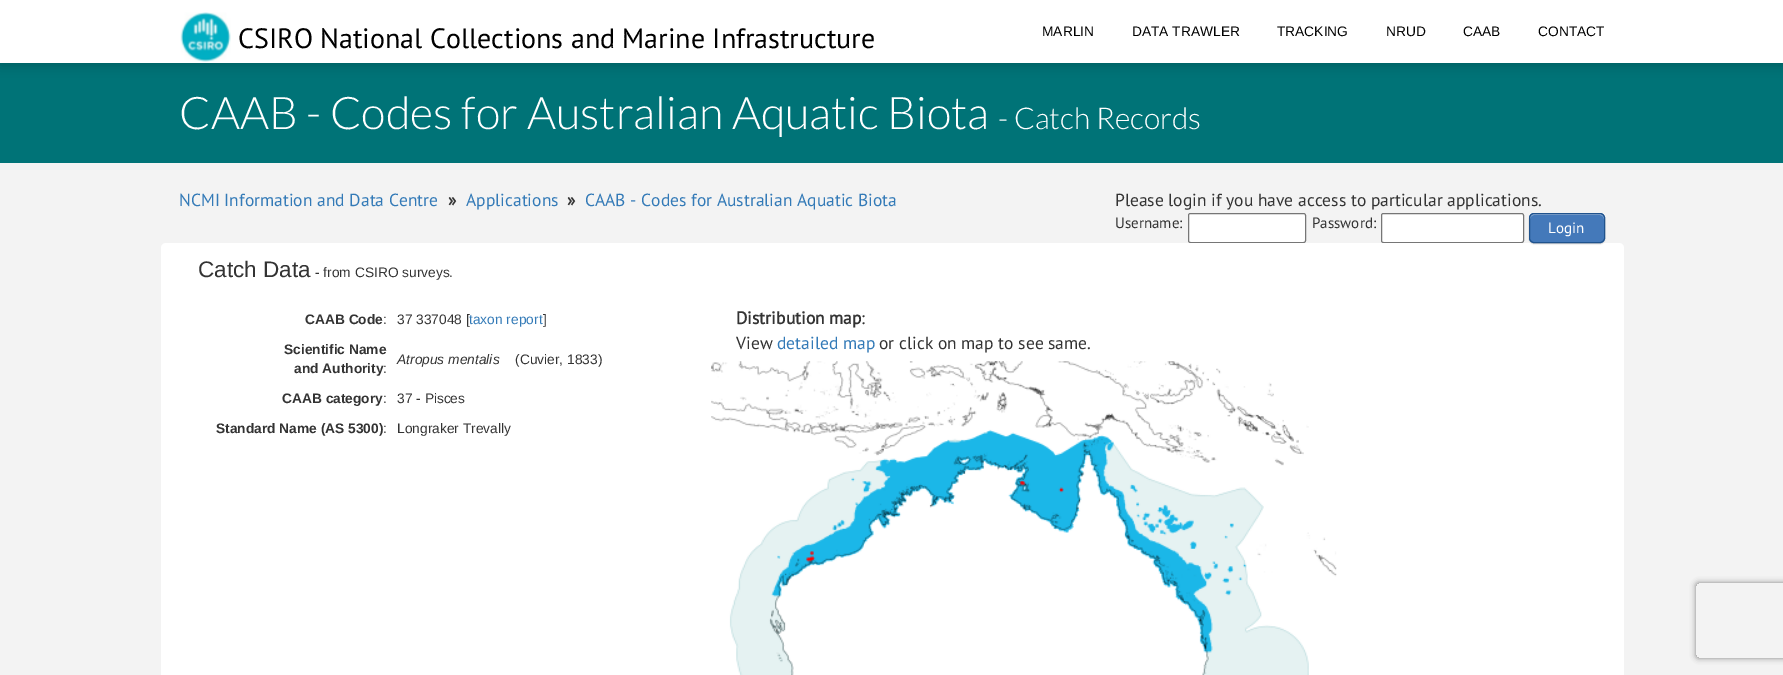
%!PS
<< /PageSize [1783 675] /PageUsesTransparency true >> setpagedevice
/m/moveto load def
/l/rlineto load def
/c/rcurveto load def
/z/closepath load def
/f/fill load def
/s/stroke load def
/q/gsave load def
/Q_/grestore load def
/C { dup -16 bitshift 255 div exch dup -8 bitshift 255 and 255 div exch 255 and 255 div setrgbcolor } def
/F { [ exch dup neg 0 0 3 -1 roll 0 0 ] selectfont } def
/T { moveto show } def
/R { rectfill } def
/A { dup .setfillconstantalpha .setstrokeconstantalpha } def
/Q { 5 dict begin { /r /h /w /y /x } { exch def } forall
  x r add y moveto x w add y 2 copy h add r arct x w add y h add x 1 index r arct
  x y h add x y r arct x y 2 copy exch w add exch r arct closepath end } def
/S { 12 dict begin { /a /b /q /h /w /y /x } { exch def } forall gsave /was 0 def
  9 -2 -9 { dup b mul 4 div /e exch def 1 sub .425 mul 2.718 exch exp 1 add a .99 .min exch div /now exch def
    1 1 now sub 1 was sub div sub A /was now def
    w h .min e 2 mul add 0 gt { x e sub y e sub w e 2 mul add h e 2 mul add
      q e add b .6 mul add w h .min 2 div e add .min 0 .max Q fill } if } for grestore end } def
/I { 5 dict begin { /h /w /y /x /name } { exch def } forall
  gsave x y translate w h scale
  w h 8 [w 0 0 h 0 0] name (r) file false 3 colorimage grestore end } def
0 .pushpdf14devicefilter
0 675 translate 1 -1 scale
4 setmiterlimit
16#F3F3F3 C
0 0 1783 675 R
16#007377 C
0 63 1783 100 R
16#000000 C
0 3 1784 62 0 6 .2 S
16#FFFFFF C
0 0 1783 63 R
(1.rgb) 180 12 51 50 I
/PTSans-Regular 28 F
16#000000 C
(CSIRO National Collections and Marine Infrastructure) 238 48 T
/LiberationSans-Regular 13.75 F
(MARLIN) 1042 36 T
(DATA TRAWLER) 1132 36 T
(TRACKING) 1277 36 T
(NRUD) 1386 36 T
(CAAB) 1463 36 T
(CONTACT) 1538 36 T
/Lato-Light 45 F
16#FFFFFF C
(CAAB - Codes for Australian Aquatic Biota) 179 129 T
/Lato-Light 30 F
(- Catch Records) 998 129 T
/PTSans-Regular 17.5 F
16#337AB7 C
(NCMI Information and Data Centre) 179 206 T
/PTSans-Bold 17.5 F
16#333333 C
(») 448 206 T
/PTSans-Regular 17.5 F
16#337AB7 C
(Applications) 466 206 T
/PTSans-Bold 17.5 F
16#333333 C
(») 567 206 T
/PTSans-Regular 17.5 F
16#337AB7 C
(CAAB - Codes for Australian Aquatic Biota) 585 206 T
16#333333 C
(Please login if you have access to particular applications.) 1115 206 T
/PTSans-Regular 15 F
(Username:) 1115 228 T
16#FFFFFF C
1188.5 213.5 117 29 2 Q q f Q_
16#767676 C
s
16#333333 C
(Password:) 1312 228 T
16#FFFFFF C
1381.5 213.5 142 29 2 Q q f Q_
16#767676 C
s
16#FFFFFF C
161 243 1463 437 5 Q f
16#000000 C
1529 214 76 30 5 .5 .2 S
16#4479BA C
1529 213 76 30 5 Q f
16#8FAFD6 C
1534 215 m 66 0 l 2 0 4 2 4 4 c 0 -8 -10 -5 -15 -5 c -44 0 l -5 0 -15 -3 -15 5 c 0 -2 2 -4 4 -4 c z f
16#20538D C
1529.5 213.5 75 29 4.5 Q s
16#FFFFFF C
(Login) 1548 233 T
q
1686 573 m 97 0 l 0 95 l -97 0 l z 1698.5 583 m 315 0 l 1.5 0 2.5 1 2.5 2.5 c 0 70 l 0 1.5 -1 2.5 -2.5 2.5 c -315 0 l -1.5 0 -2.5 -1 -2.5 -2.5 c 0 -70 l 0 -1.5 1 -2.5 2.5 -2.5 c z eoclip newpath
16#808080 C
1696 583 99 75 2.5 3 1 S
Q_
/LiberationSans-Regular 22.5 F
16#333333 C
(Catch Data) 198 277 T
/LiberationSans-Regular 13.75 F
(- from CSIRO surveys.) 315 277 T
/LiberationSans-Bold 13.75 F
(CAAB Code) 305 324 T
/LiberationSans-Regular 13.75 F
(:) 383 324 T
(37 337048 [) 397 324 T
16#337AB7 C
(taxon report) 469 324 T
16#333333 C
(]) 543 324 T
/LiberationSans-Bold 13.75 F
(Scientific Name) 284 354 T
(and Authority) 294 373 T
/LiberationSans-Regular 13.75 F
(:) 383 373 T
/LiberationSans-Italic 13.75 F
(Atropus mentalis) 397 364 T
/LiberationSans-Regular 13.75 F
(\(Cuvier, 1833\)) 515 364 T
/LiberationSans-Bold 13.75 F
(CAAB category) 282 403 T
/LiberationSans-Regular 13.75 F
(:) 383 403 T
(37 - Pisces) 397 403 T
/LiberationSans-Bold 13.75 F
(Standard Name \(AS 5300\)) 216 433 T
/LiberationSans-Regular 13.75 F
(:) 383 433 T
(Longraker Trevally) 397 433 T
/PTSans-Bold 17.5 F
(Distribution map) 736 324 T
/PTSans-Regular 17.5 F
(:) 861 324 T
(View) 736 349 T
16#337AB7 C
(detailed map) 777 349 T
16#333333 C
(or click on map to see same.) 879 349 T
(2.rgb) 711 361 626 314 I
.poppdf14devicefilter showpage
